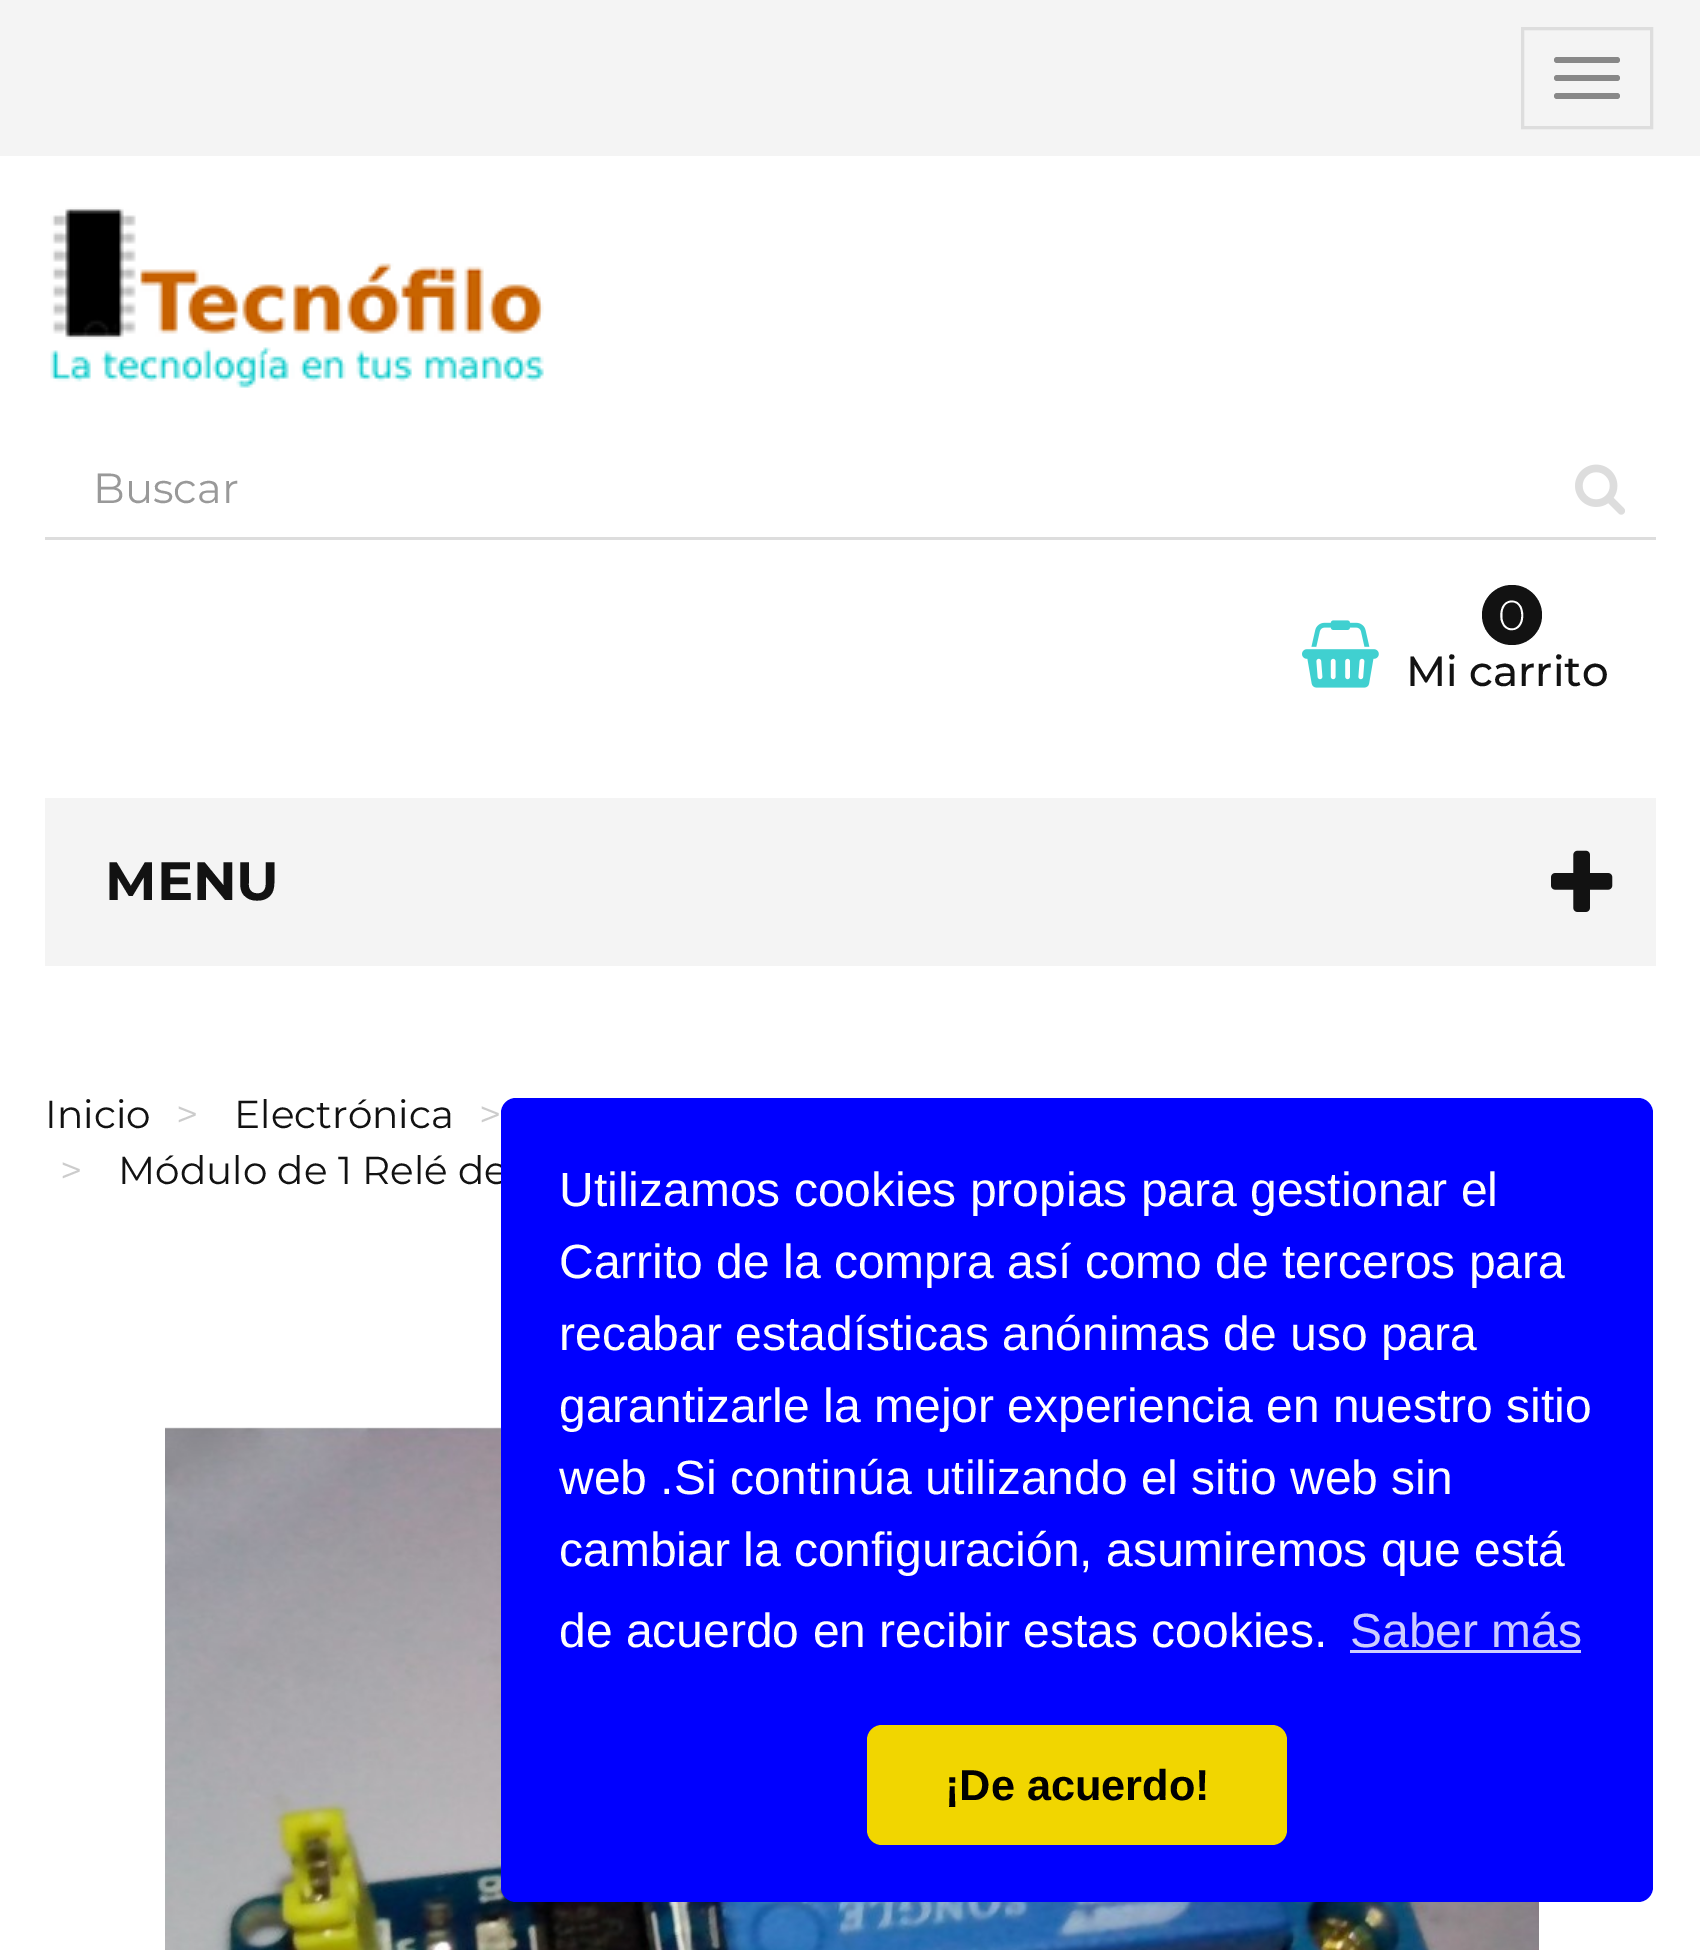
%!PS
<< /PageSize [1700 1950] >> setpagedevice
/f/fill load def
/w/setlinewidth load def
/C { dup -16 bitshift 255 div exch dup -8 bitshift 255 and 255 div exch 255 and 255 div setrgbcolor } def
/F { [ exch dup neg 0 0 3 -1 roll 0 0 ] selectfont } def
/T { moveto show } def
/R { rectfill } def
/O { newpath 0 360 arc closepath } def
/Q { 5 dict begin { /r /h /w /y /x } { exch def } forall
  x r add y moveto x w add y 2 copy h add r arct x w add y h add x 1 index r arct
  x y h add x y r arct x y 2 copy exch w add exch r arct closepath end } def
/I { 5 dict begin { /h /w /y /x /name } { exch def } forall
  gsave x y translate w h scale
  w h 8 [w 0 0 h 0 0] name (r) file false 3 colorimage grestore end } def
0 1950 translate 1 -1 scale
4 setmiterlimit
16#FFFFFF C
0 0 1700 1950 R
16#F4F4F4 C
0 0 1700 156 R
16#DDDDDD C
3 w
1522.5 28.5 129 99 rectstroke
16#888888 C
1554 57 66 6 3 Q f
1554 75 66 6 3 Q f
1554 93 66 6 3 Q f
(1.rgb) 50 207 494 181 I
16#DDDDDD C
45 537 1611 3 R
/Montserrat-Regular 42 F
16#999999 C
(Buscar) 93 503 T
(2.rgb) 1575 464 50 51 I
16#121212 C
1512 615 30 O f
/Montserrat-Light 42 F
16#FFFFFF C
(0) 1498 630 T
(3.rgb) 1302 620 77 68 I
/Montserrat-Medium 42 F
16#121212 C
(Mi carrito) 1406 686 T
16#F4F4F4 C
45 798 1611 168 R
/Montserrat-Bold 54 F
16#121212 C
(MENU) 105 900 T
(4.rgb) 1551 850 62 62 I
/Montserrat-Regular 39 F
(Inicio) 45 1128 T
16#CCCCCC C
(>) 176 1128 T
16#121212 C
(Electrónica) 234 1128 T
16#CCCCCC C
(>) 479 1128 T
(>) 60 1184 T
16#121212 C
(Módulo de 1 Relé de) 118 1184 T
(5.rgb) 165 1427 1374 523 I
16#0000FF C
501 1098 1152 804 15 Q f
/LiberationSans-Regular 48 F
16#FFFFFF C
(Utilizamos cookies propias para gestionar el) 559 1206 T
(Carrito de la compra así como de terceros para) 559 1278 T
(recabar estadísticas anónimas de uso para) 559 1350 T
(garantizarle la mejor experiencia en nuestro sitio) 559 1422 T
(web .Si continúa utilizando el sitio web sin) 559 1494 T
(cambiar la configuración, asumiremos que está) 559 1566 T
(de acuerdo en recibir estas cookies.) 559 1647 T
16#CCCCFF C
(Saber más) 1350 1647 T
1350 1650 231 3 R
16#F1D600 C
867 1725 420 120 15 Q f
/LiberationSans-Bold 43.25 F
16#000000 C
(¡De acuerdo!) 945 1800 T
showpage
